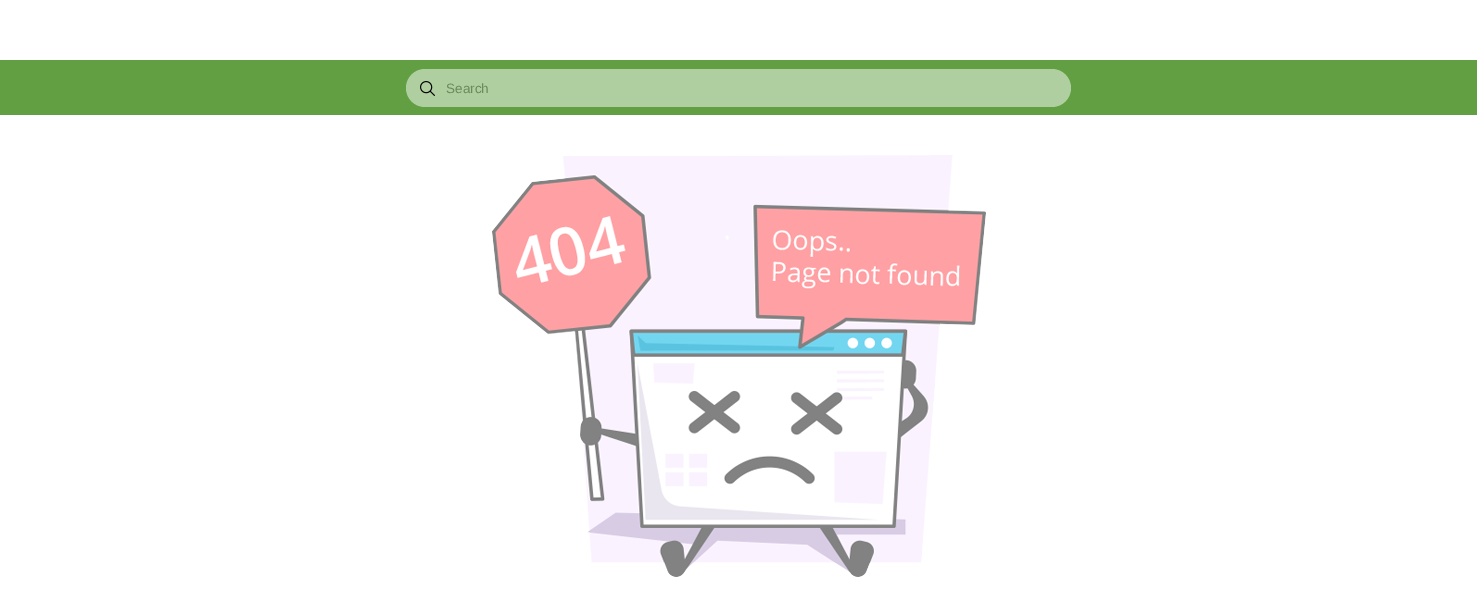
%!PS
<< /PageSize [1477 615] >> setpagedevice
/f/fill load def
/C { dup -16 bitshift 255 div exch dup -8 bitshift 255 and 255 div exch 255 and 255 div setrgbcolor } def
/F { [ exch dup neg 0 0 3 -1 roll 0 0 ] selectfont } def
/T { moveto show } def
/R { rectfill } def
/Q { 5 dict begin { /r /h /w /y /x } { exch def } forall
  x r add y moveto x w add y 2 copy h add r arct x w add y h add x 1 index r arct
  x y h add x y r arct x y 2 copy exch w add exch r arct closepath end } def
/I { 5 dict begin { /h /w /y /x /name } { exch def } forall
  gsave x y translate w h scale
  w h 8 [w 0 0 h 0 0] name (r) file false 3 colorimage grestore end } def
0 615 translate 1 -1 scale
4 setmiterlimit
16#FFFFFF C
0 0 1477 615 R
16#619F42 C
0 60 1477 55 R
16#B0CFA1 C
406 69 665 38 19 Q f
(1.rgb) 420 81 15 15 I
/LiberationSans-Regular 13.5 F
16#6B8A5C C
(Search) 446 93 T
(2.rgb) 492 155 494 422 I
showpage
